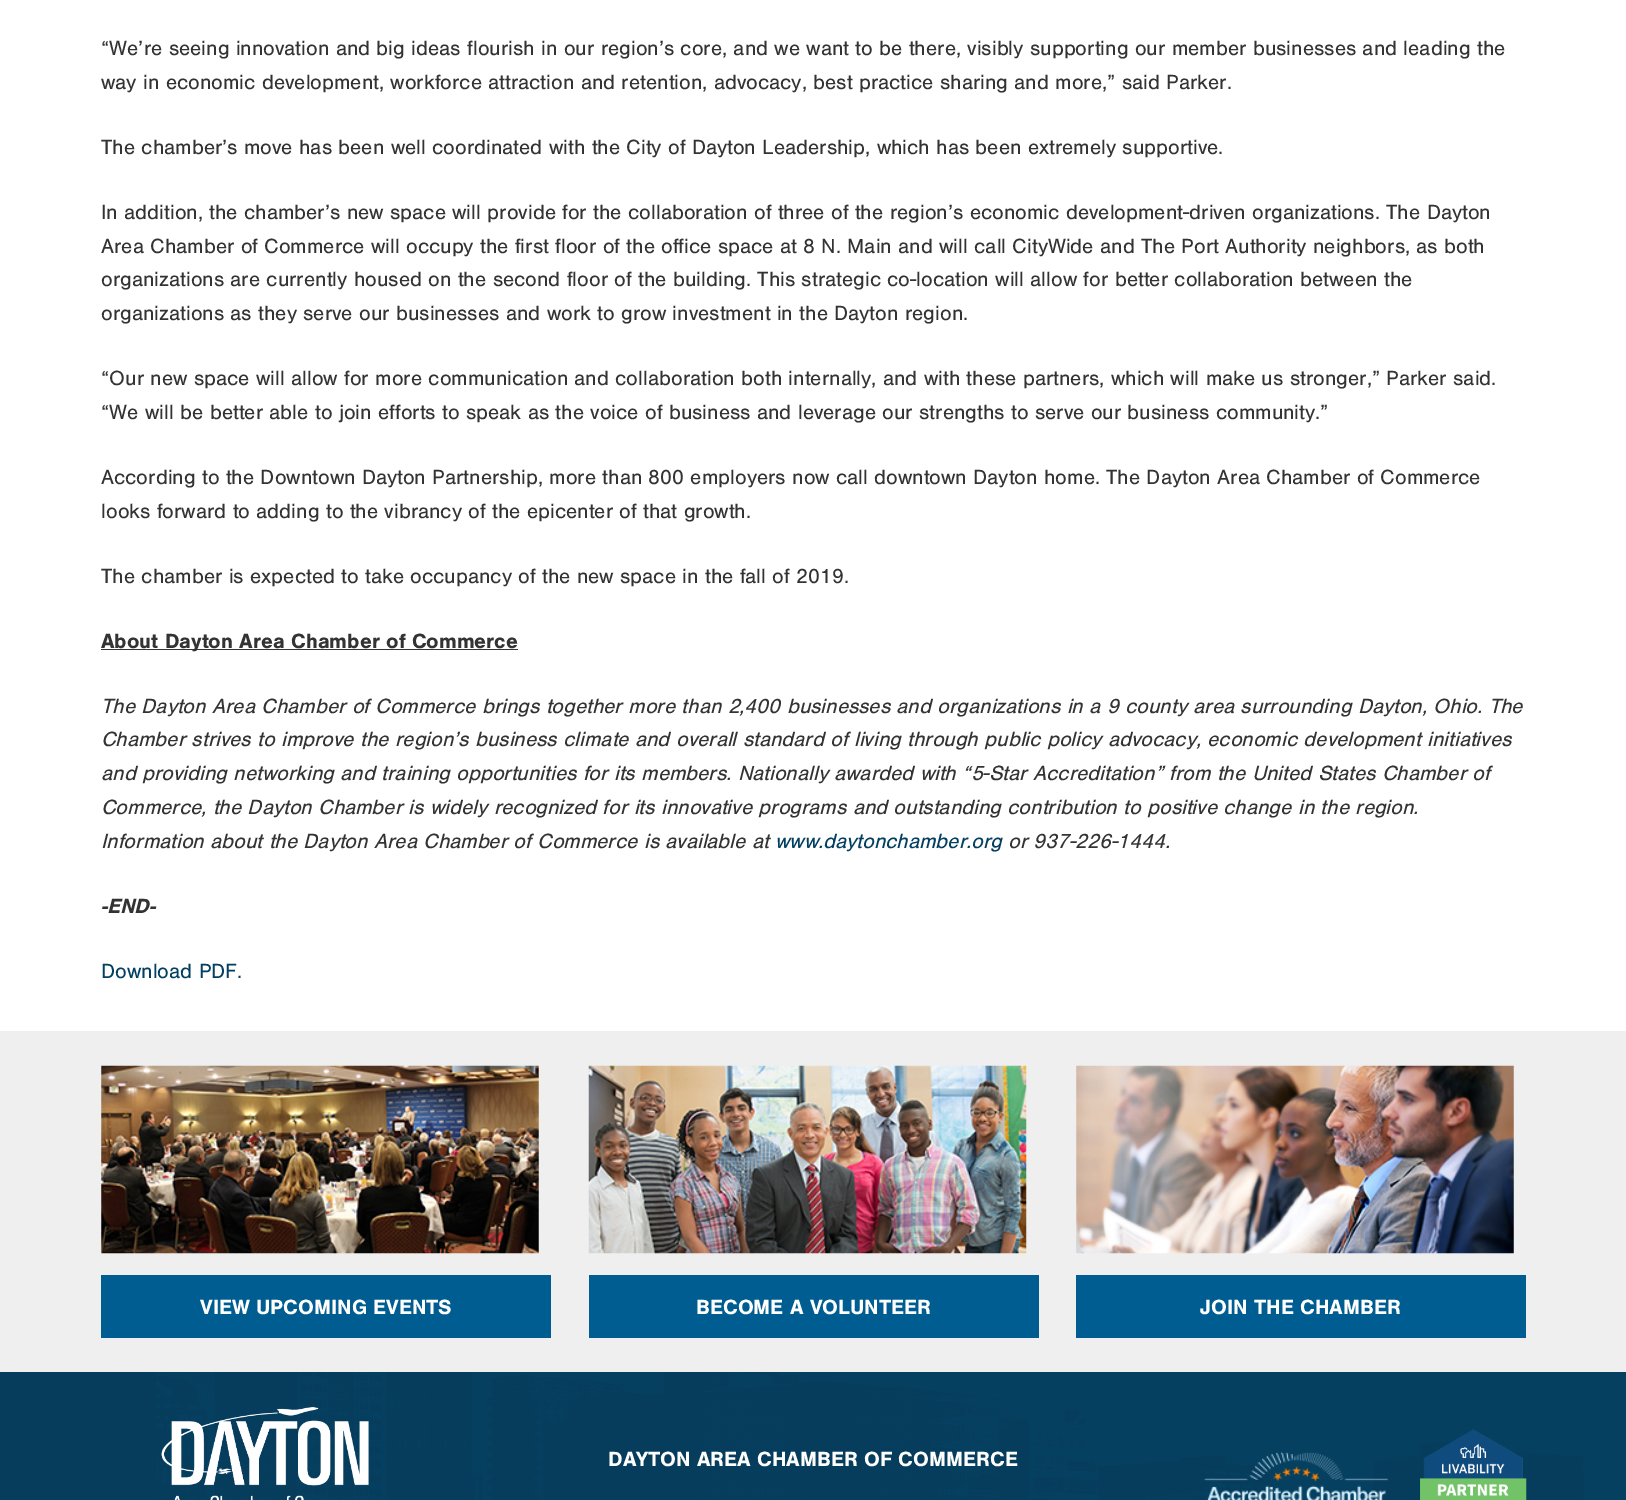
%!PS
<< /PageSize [1626 1500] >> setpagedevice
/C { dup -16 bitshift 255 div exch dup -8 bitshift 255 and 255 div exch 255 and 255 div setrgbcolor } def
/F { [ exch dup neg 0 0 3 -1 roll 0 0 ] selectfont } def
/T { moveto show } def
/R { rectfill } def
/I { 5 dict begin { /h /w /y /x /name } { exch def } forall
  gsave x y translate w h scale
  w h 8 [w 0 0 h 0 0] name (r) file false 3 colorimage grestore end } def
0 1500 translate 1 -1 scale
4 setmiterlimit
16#FFFFFF C
0 0 1626 1500 R
/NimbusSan-Regular 21.25 F
16#333333 C
(“We’re seeing innovation and big ideas flourish in our region’s core, and we want to be there, visibly supporting our member businesses and leading the) 101 55 T
(way in economic development, workforce attraction and retention, advocacy, best practice sharing and more,” said Parker.) 101 89 T
(The chamber’s move has been well coordinated with the City of Dayton Leadership, which has been extremely supportive.) 101 154 T
(In addition, the chamber’s new space will provide for the collaboration of three of the region’s economic development-driven organizations. The Dayton) 101 219 T
(Area Chamber of Commerce will occupy the first floor of the office space at 8 N. Main and will call CityWide and The Port Authority neighbors, as both) 101 253 T
(organizations are currently housed on the second floor of the building. This strategic co-location will allow for better collaboration between the) 101 286 T
(organizations as they serve our businesses and work to grow investment in the Dayton region.) 101 320 T
(“Our new space will allow for more communication and collaboration both internally, and with these partners, which will make us stronger,” Parker said.) 101 385 T
(“We will be better able to join efforts to speak as the voice of business and leverage our strengths to serve our business community.”) 101 419 T
(According to the Downtown Dayton Partnership, more than 800 employers now call downtown Dayton home. The Dayton Area Chamber of Commerce) 101 484 T
(looks forward to adding to the vibrancy of the epicenter of that growth.) 101 518 T
(The chamber is expected to take occupancy of the new space in the fall of 2019.) 101 583 T
101 649 417 1 R
/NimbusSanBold-Bold 21.25 F
(About Dayton Area Chamber of Commerce) 101 648 T
/NimbusSan-Italic 21.25 F
(The Dayton Area Chamber of Commerce brings together more than 2,400 businesses and organizations in a 9 county area surrounding Dayton, Ohio. The) 101 713 T
(Chamber strives to improve the region’s business climate and overall standard of living through public policy advocacy, economic development initiatives) 101 746 T
(and providing networking and training opportunities for its members. Nationally awarded with “5-Star Accreditation” from the United States Chamber of) 101 780 T
(Commerce, the Dayton Chamber is widely recognized for its innovative programs and outstanding contribution to positive change in the region.) 101 814 T
(Information about the Dayton Area Chamber of Commerce is available at) 101 848 T
16#023F61 C
(www.daytonchamber.org) 775 848 T
16#333333 C
(or 937-226-1444.) 1008 848 T
/NimbusSanBold-BoldItalic 21.25 F
(-END-) 101 913 T
/NimbusSan-Regular 21.25 F
16#023F61 C
(Download PDF.) 101 978 T
16#EFEFEF C
0 1031 1626 341 R
(1.rgb) 101 1065 438 189 I
16#005D91 C
101 1275 450 63 R
/NimbusSanBold-Bold 21.25 F
16#FFFFFF C
(VIEW UPCOMING EVENTS) 200 1314 T
(2.rgb) 588 1065 439 189 I
16#005D91 C
589 1275 450 63 R
16#FFFFFF C
(BECOME A VOLUNTEER) 696 1314 T
(3.rgb) 1076 1065 438 189 I
16#005D91 C
1076 1275 450 63 R
16#FFFFFF C
(JOIN THE CHAMBER) 1200 1314 T
(4.rgb) 0 1372 1626 128 I
(5.rgb) 161 1407 208 93 I
(DAYTON AREA CHAMBER OF COMMERCE) 608 1466 T
(6.rgb) 1204 1451 184 49 I
(7.rgb) 1420 1429 107 71 I
showpage
